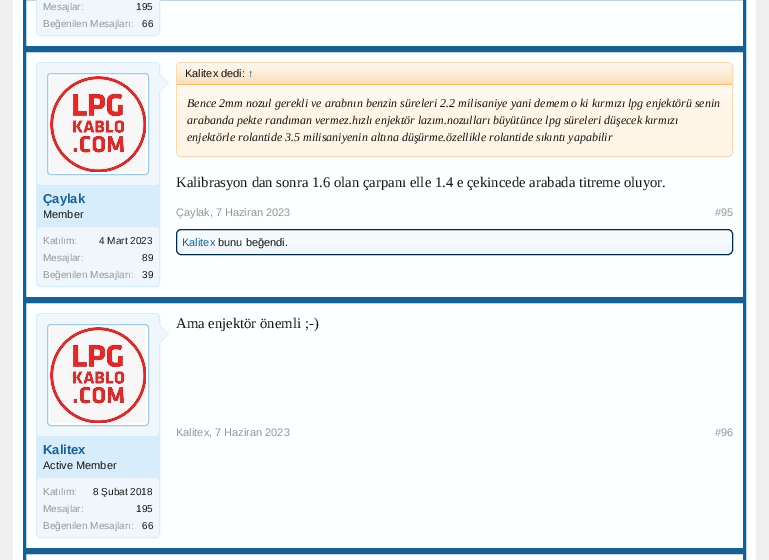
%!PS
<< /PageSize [769 560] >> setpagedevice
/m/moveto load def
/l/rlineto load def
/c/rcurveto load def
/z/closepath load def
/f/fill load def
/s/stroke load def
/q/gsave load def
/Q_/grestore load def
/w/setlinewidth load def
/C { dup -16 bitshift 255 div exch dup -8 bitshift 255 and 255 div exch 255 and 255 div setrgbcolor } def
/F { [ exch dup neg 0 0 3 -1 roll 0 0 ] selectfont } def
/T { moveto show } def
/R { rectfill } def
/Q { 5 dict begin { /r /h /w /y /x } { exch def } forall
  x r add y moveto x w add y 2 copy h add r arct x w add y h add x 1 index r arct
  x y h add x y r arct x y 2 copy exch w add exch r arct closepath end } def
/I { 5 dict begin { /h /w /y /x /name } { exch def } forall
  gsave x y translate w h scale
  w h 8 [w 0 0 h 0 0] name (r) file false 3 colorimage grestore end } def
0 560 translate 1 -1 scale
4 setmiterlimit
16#F0F0F0 C
0 0 769 560 R
16#FCFFFF C
13 0 743 560 R
16#176093 C
3 w
24.5 -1.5 720 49 rectstroke
(1.rgb) 36 31 124 4 I
16#D7EDFC C
1 w
36.5 -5.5 123 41 4.5 Q s
16#F0F7FC C
37 -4 122 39 4 Q f
/LiberationSans-Regular 10 F
16#969696 C
(Mesajlar:) 43 10 T
16#141414 C
(195) 136 10 T
16#969696 C
(Beğenilen Mesajları:) 43 27 T
16#141414 C
(66) 142 27 T
16#176093 C
3 w
24.5 50.5 720 248 rectstroke
16#D7EDFC C
36 62 124 225 5 Q f
(1.rgb) 36 282 124 4 I
1 w
36.5 62.5 123 224 4.5 Q s
16#F0F7FC C
37 63 122 122 4 Q f
16#FCFFFF C
47.5 73.5 101 101 3.5 Q q f Q_
16#A5CAE4 C
s
(2.rgb) 50 76 96 96 I
16#D7EDFC C
159 93 m 0 -20 l 10 10 l z f
16#F0F7FC C
158 93 m 0 -20 l 10 10 l z f
/LiberationSans-Bold 13 F
16#176093 C
(Çaylak) 43 203 T
/LiberationSans-Regular 11 F
16#141414 C
(Member) 43 218 T
16#F0F7FC C
37 227 122 59 4 Q f
/LiberationSans-Regular 10 F
16#969696 C
(Katılım:) 43 244 T
16#141414 C
(4 Mart 2023) 99 244 T
16#969696 C
(Mesajlar:) 43 261 T
16#141414 C
(89) 142 261 T
16#969696 C
(Beğenilen Mesajları:) 43 278 T
16#141414 C
(39) 142 278 T
16#F9D9B0 C
176.5 62.5 556 94 4.5 Q s
181 63 m 547 0 l 2 0 4 2 4 4 c 0 18 l -555 0 l 0 -18 l 0 -2 2 -4 4 -4 c z f
(3.rgb) 177 63 555 21 I
16#F9BC6D C
177 84 555 1 R
/LiberationSans-Regular 11 F
16#141414 C
(Kalitex dedi:) 185 77 T
16#176093 C
(↑) 248 77 T
16#FFF4E5 C
177 85 555 71 4 Q f
(4.rgb) 177 85 555 18 I
/LiberationSerif-Italic 12 F
16#141414 C
(Bence 2mm nozul gerekli ve arabnın benzin süreleri 2.2 milisaniye yani demem o ki kırmızı lpg enjektörü senin) 187 107 T
(arabanda pekte randıman vermez.hızlı enjektör lazım.nozulları büyütünce lpg süreleri düşecek kırmızı) 187 124 T
(enjektörle rolantide 3.5 milisaniyenin altına düşürme.özellikle rolantide sıkıntı yapabilir) 187 141 T
/LiberationSerif-Regular 14.7 F
(Kalibrasyon dan sonra 1.6 olan çarpanı elle 1.4 e çekincede arabada titreme oluyor.) 176 187 T
/LiberationSans-Regular 11 F
16#969696 C
(Çaylak, 7 Haziran 2023) 176 216 T
(#95) 715 216 T
16#F0F7FC C
176 229 557 26 5 Q f
(5.rgb) 176 230 557 16 I
16#032A46 C
176.5 229.5 556 25 4.5 Q s
16#176093 C
(Kalitex) 182 246 T
16#141414 C
(bunu beğendi.) 218 246 T
16#176093 C
3 w
24.5 301.5 720 248 rectstroke
/LiberationSerif-Regular 14.7 F
16#141414 C
(Ama enjektör önemli ;-\)) 176 328 T
/LiberationSans-Regular 11 F
16#969696 C
(Kalitex, 7 Haziran 2023) 176 436 T
(#96) 715 436 T
16#D7EDFC C
36 313 124 225 5 Q f
(1.rgb) 36 533 124 4 I
1 w
36.5 313.5 123 224 4.5 Q s
16#F0F7FC C
37 314 122 122 4 Q f
16#FCFFFF C
47.5 324.5 101 101 3.5 Q q f Q_
16#A5CAE4 C
s
(2.rgb) 50 327 96 96 I
16#D7EDFC C
159 344 m 0 -20 l 10 10 l z f
16#F0F7FC C
158 344 m 0 -20 l 10 10 l z f
/LiberationSans-Bold 13 F
16#176093 C
(Kalitex) 43 454 T
/LiberationSans-Regular 11 F
16#141414 C
(Active Member) 43 469 T
16#F0F7FC C
37 478 122 59 4 Q f
/LiberationSans-Regular 10 F
16#969696 C
(Katılım:) 43 495 T
16#141414 C
(8 Şubat 2018) 93 495 T
16#969696 C
(Mesajlar:) 43 512 T
16#141414 C
(195) 136 512 T
16#969696 C
(Beğenilen Mesajları:) 43 529 T
16#141414 C
(66) 142 529 T
16#176093 C
3 w
24.5 552.5 720 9 rectstroke
showpage
